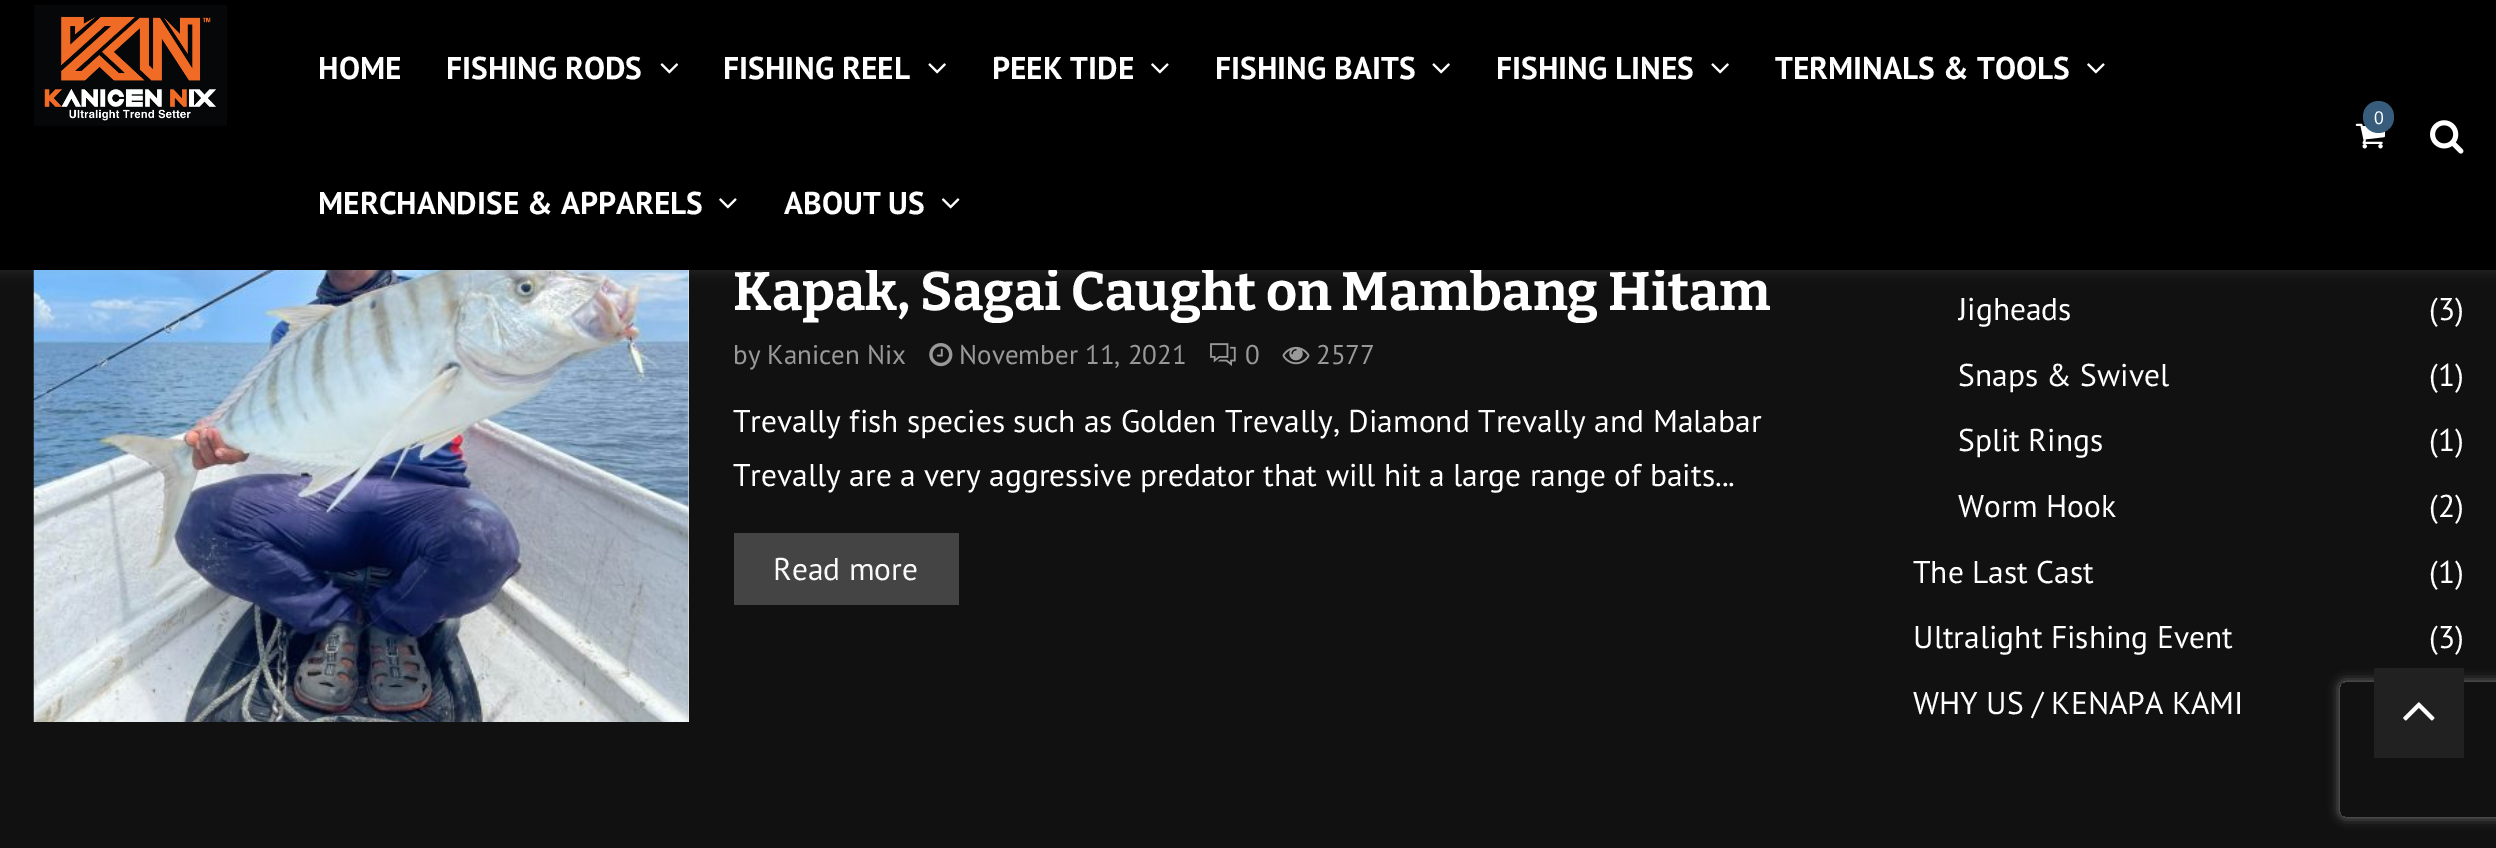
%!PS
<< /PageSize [2496 848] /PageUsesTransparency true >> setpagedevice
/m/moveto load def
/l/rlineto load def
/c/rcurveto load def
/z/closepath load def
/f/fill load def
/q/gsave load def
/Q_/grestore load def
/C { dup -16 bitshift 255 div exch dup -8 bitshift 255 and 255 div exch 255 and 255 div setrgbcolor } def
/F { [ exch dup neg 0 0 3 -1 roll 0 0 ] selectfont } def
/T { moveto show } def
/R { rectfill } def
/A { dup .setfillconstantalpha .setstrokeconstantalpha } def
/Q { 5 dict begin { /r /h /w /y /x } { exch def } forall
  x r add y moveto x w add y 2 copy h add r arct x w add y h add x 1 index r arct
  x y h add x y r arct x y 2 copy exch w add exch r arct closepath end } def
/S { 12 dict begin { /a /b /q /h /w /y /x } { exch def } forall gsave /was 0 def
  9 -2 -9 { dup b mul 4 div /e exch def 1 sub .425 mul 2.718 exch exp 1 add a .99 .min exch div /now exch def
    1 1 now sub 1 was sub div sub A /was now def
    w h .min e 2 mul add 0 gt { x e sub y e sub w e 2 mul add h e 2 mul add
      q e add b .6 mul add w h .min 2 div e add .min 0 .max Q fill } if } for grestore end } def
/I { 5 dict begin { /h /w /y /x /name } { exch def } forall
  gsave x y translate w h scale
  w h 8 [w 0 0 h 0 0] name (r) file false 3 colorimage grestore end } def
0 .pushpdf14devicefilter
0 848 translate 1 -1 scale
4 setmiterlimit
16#111111 C
0 0 2496 848 R
16#F5F5F5 C
34 270 655 452 R
(8.rgb) 33 270 656 452 I
16#FFFFFF C
0 2 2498 270 0 5.5 .08 S
/Bitter-Bold 54 F
(Kapak, Sagai Caught on Mambang Hitam) 733 310 T
16#000000 C
0 0 2496 270 R
(1.rgb) 34 5 193 121 I
/PTSans-Bold 31.5 F
16#FFFFFF C
(HOME) 318 79 T
(FISHING RODS) 446 79 T
(2.rgb) 660 63 19 11 I
(FISHING REEL) 723 79 T
(3.rgb) 928 63 18 11 I
(PEEK TIDE) 992 79 T
(4.rgb) 1151 63 18 11 I
(FISHING BAITS) 1215 79 T
(3.rgb) 1432 63 18 11 I
(FISHING LINES) 1496 79 T
(3.rgb) 1711 63 18 11 I
(TERMINALS & TOOLS) 1775 79 T
(4.rgb) 2087 63 18 11 I
(MERCHANDISE & APPARELS) 318 214 T
(4.rgb) 719 198 18 11 I
(ABOUT US) 784 214 T
(5.rgb) 941 198 19 11 I
(6.rgb) 2355 123 30 26 I
16#385C7B C
2363 101 31 32 15.5 Q f
/PTSans-Regular 18 F
16#FFFFFF C
(0) 2374 124 T
(7.rgb) 2430 120 34 34 I
/PTSans-Regular 27 F
16#999999 C
(by Kanicen Nix) 733 364 T
(9.rgb) 929 343 24 24 I
(November 11, 2021) 959 364 T
(10.rgb) 1210 343 26 23 I
(0) 1245 364 T
(11.rgb) 1282 346 28 19 I
(2577) 1316 364 T
/PTSans-Regular 31.5 F
16#FFFFFF C
(Trevally fish species such as Golden Trevally, Diamond Trevally and Malabar) 733 432 T
(Trevally are a very aggressive predator that will hit a large range of baits...) 733 486 T
16#444444 C
734 533 225 72 R
16#F9F9F9 C
(Read more) 773 580 T
q
1958 288 506 54 rectclip
16#FFFFFF C
(Jigheads) 1958 320 T
Q_
16#FFFFFF C
(\(3\)) 2429 320 T
(Snaps & Swivel) 1958 386 T
(\(1\)) 2429 386 T
(Split Rings) 1958 451 T
(\(1\)) 2429 451 T
(Worm Hook) 1958 517 T
(\(2\)) 2429 517 T
(The Last Cast) 1913 583 T
(\(1\)) 2429 583 T
(Ultralight Fishing Event) 1913 648 T
(\(3\)) 2429 648 T
(WHY US / KENAPA KAMI) 1913 714 T
q
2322 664 m 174 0 l 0 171 l -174 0 l z 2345 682 m 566 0 l 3 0 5 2 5 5 c 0 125 l 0 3 -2 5 -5 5 c -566 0 l -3 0 -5 -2 -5 -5 c 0 -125 l 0 -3 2 -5 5 -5 c z eoclip newpath
16#808080 C
2340 682 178 135 5 5.5 1 S
Q_
16#212121 C
2374 668 90 90 R
(12.rgb) 2403 702 32 19 I
.poppdf14devicefilter showpage
